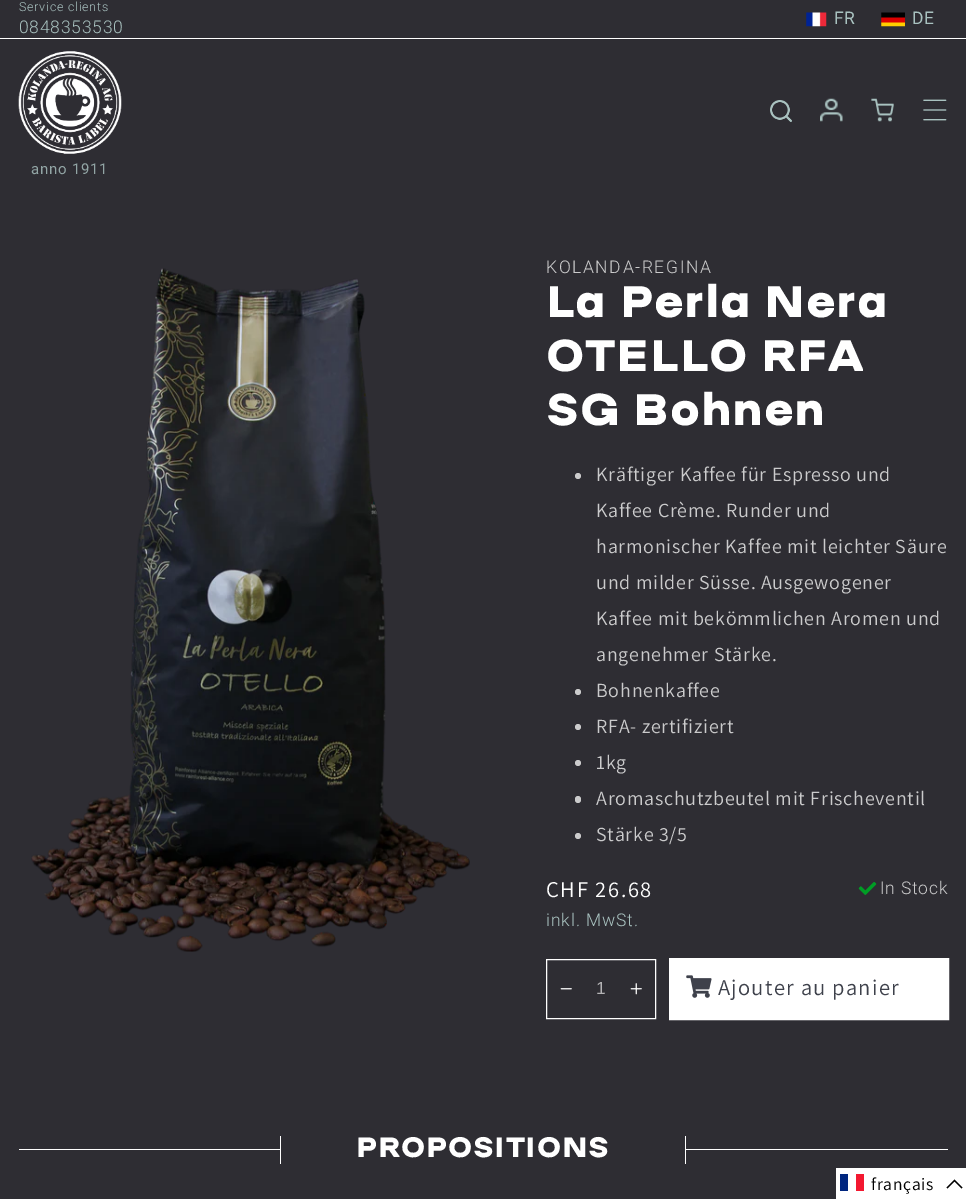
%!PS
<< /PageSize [966 1199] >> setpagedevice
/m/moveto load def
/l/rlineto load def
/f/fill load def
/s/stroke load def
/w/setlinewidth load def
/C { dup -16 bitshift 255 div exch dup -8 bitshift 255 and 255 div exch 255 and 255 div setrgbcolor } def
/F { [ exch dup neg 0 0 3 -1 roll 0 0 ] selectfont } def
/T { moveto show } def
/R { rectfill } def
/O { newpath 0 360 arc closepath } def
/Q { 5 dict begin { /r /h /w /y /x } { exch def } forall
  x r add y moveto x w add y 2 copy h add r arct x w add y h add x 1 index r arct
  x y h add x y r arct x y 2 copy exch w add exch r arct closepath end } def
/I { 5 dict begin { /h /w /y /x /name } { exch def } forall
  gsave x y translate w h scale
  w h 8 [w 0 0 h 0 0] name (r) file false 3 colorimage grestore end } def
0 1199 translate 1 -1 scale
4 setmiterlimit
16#2E2D33 C
0 0 966 1199 R
16#FFFFFF C
0 38 966 1 R
/Roboto-Light 12.5 F
16#A9C2C0 C
19 11 m .75 0 (Service clients) ashow
/Roboto-Light 17.5 F
19 33 m .75 0 (0848353530) ashow
(1.rgb) 806 12 21 15 I
/Roboto-Regular 17.5 F
834 24 m .75 0 (FR) ashow
(2.rgb) 881 12 24 15 I
912 24 m .75 0 (DE) ashow
(3.rgb) 770 100 22 22 I
(4.rgb) 820 98 23 24 I
(5.rgb) 871 98 23 24 I
(6.rgb) 923 99 24 22 I
(7.rgb) 18 51 104 103 I
/Roboto-Regular 15 F
16#92A5A5 C
31 174 m .75 0 (anno 1911) ashow
(8.rgb) 31 268 439 684 I
/Roboto-Light 17.5 F
16#CBCBCC C
546 273 m 1.6 0 (KOLANDA-REGINA) ashow
/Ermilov-Bold 47.5 F
16#FFFFFF C
546 317 m .75 0 (La Perla Nera) ashow
546 371 m .75 0 (OTELLO RFA) ashow
546 425 m .75 0 (SG Bohnen) ashow
16#CBCBCC C
578 476 3 O f
/Assistant-Regular 20 F
596 481 m .75 0 (Kräftiger Kaffee für Espresso und) ashow
596 517 m .75 0 (Kaffee Crème. Runder und) ashow
596 553 m .75 0 (harmonischer Kaffee mit leichter Säure) ashow
596 589 m .75 0 (und milder Süsse. Ausgewogener) ashow
596 625 m .75 0 (Kaffee mit bekömmlichen Aromen und) ashow
596 661 m .75 0 (angenehmer Stärke.) ashow
578 692 3 O f
596 697 m .75 0 (Bohnenkaffee) ashow
578 727 3 O f
596 733 m .75 0 (RFA- zertifiziert) ashow
578 763 3 O f
596 769 m .75 0 (1kg) ashow
575 796 6 7 3 Q f
596 805 m .75 0 (Aromaschutzbeutel mit Frischeventil) ashow
578 836 3 O f
596 841 m .75 0 (Stärke 3/5) ashow
/Assistant-Regular 22.5 F
16#FFFFFF C
546 897 m 1.6 0 (CHF 26.68) ashow
(9.rgb) 858 882 19 13 I
/Roboto-Light 17.5 F
16#CBCBCC C
880 894 m .75 0 (In Stock) ashow
16#A9C2C0 C
546 926 m .9 0 (inkl. MwSt.) ashow
16#FFFFFF C
546.5 959.5 109 59 rectstroke
(10.rgb) 560 988 12 2 I
/LiberationSans-Regular 17.5 F
16#B4B3B5 C
(1) 596 994 T
(11.rgb) 630 983 12 12 I
16#FFFFFF C
669.5 958.5 279 61 rectstroke
670 959 278 60 R
(12.rgb) 686 975 26 23 I
/Assistant-Regular 22.5 F
16#3E414B C
718 995 m 1.25 0 (Ajouter au panier) ashow
16#FFFFFF C
19 1149 929 1 R
16#2E2D33 C
280 1149 406 1 R
16#FFFFFF C
280 1136 1 28 R
/Ermilov-Bold 30 F
356 1157 m .75 0 (PROPOSITIONS) ashow
685 1136 1 28 R
836 1168 130 31 R
16#00267F C
840 1174 8 17 R
16#F31830 C
856 1174 8 17 R
/Assistant-Regular 17.5 F
16#000000 C
871 1190 m .75 0 (français) ashow
1.2 w
962 1188 m -7.5 -7.5 l -7.5 7.5 l s
showpage
